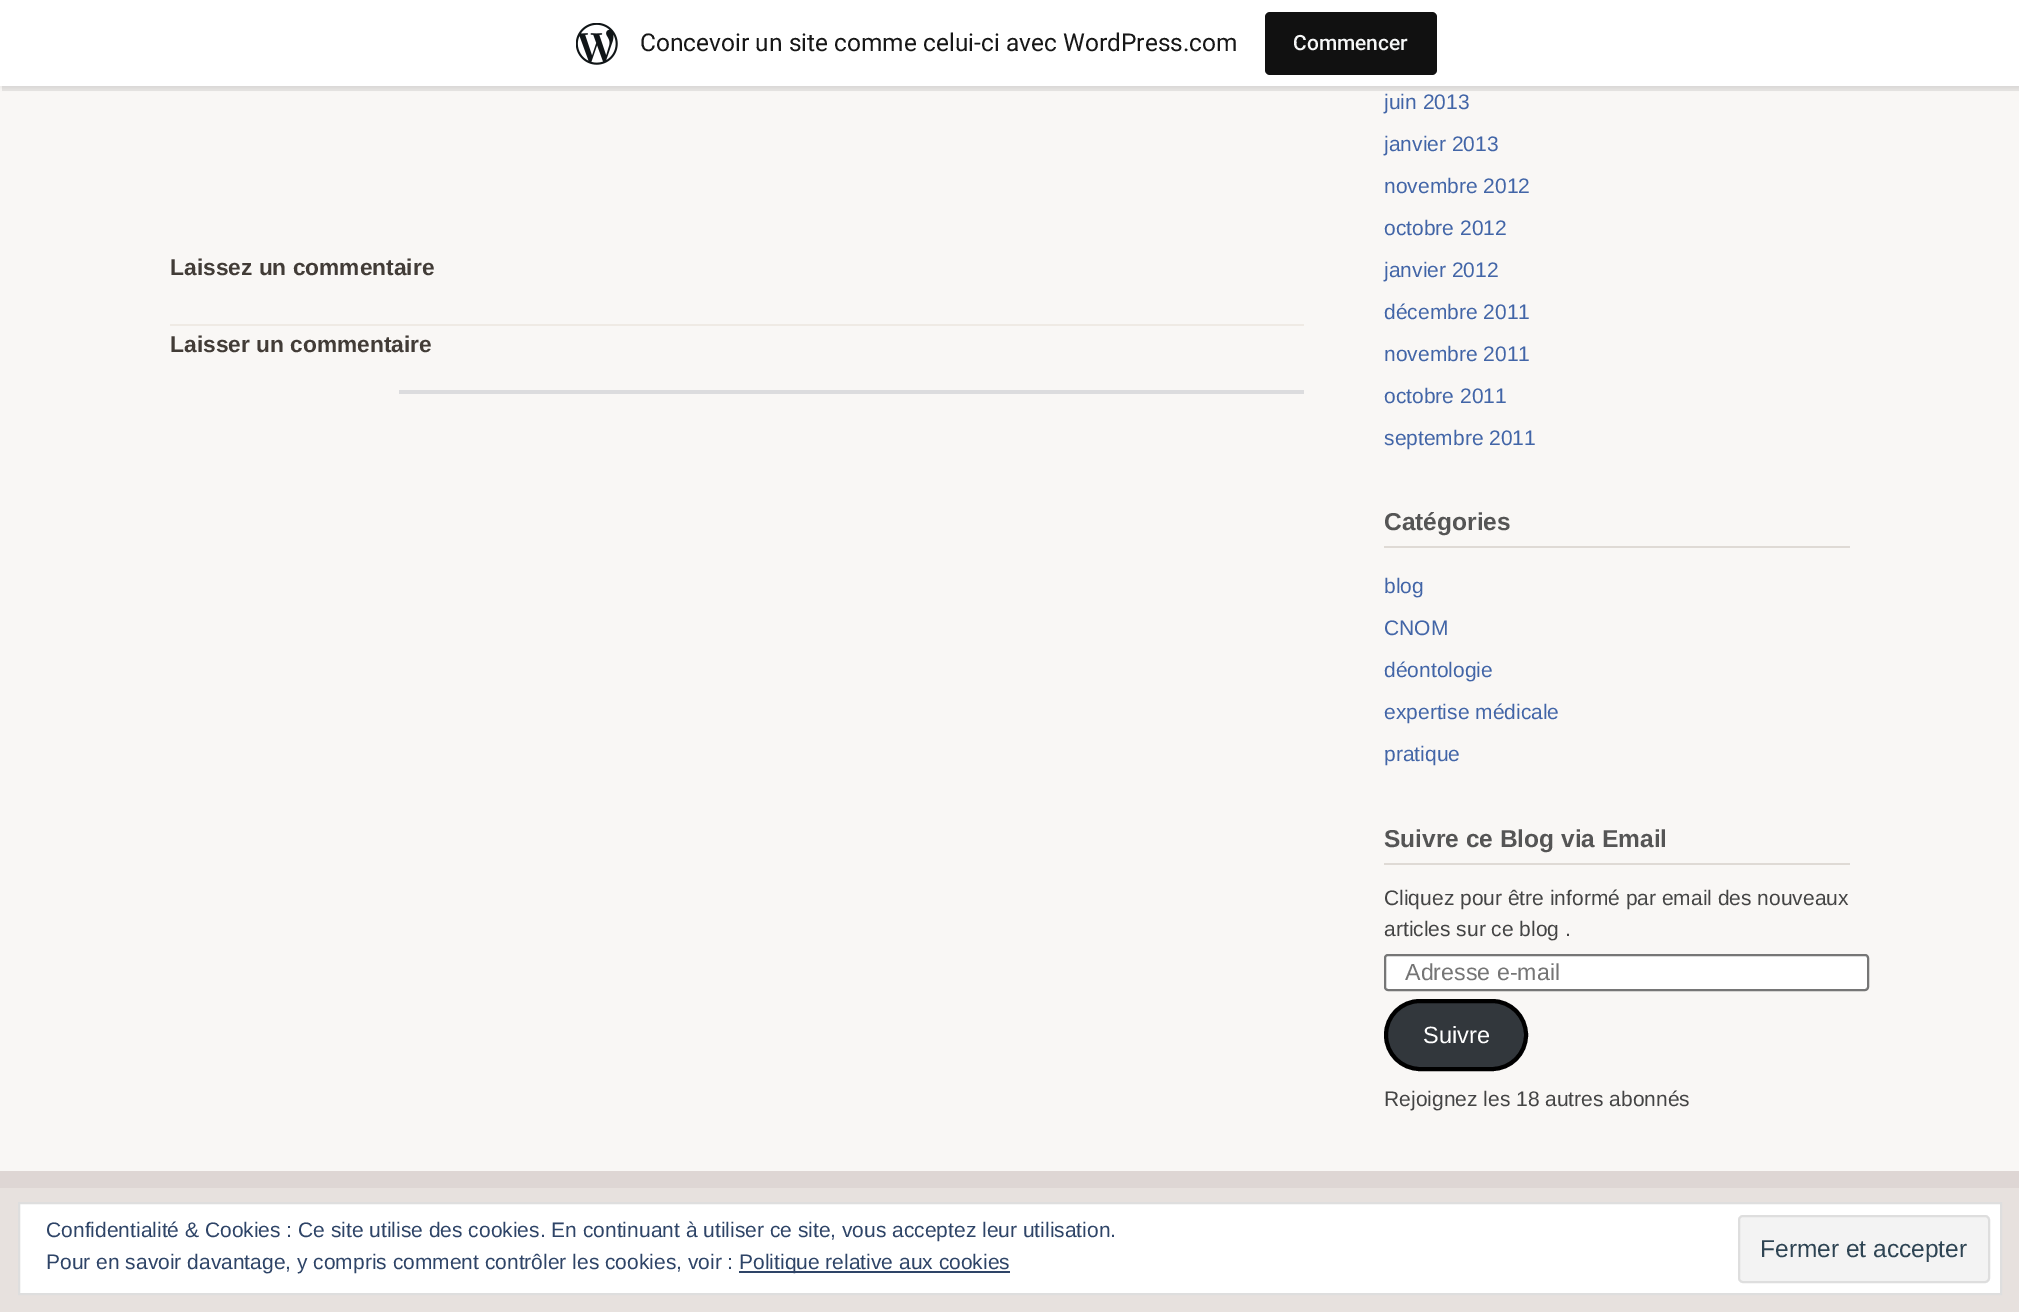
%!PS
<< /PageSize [2019 1312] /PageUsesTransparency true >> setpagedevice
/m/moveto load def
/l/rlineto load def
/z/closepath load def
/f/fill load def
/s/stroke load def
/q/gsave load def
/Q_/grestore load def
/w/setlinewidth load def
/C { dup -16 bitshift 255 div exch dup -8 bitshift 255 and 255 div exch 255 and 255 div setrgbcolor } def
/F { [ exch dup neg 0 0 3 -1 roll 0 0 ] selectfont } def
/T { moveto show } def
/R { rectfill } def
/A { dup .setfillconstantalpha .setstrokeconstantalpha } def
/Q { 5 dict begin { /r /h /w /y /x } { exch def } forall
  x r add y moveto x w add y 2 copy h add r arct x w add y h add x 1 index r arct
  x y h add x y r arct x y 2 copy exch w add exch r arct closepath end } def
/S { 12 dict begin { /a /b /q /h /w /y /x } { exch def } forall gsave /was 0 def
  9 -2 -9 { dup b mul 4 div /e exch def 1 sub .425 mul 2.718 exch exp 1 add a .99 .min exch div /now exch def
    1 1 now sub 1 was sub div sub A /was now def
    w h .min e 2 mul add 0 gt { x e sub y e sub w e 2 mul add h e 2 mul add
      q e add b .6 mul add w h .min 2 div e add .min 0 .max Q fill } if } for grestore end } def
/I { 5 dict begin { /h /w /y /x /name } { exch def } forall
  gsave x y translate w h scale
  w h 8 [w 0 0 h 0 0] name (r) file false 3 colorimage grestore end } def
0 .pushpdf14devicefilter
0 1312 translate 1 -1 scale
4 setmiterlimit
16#F9F7F5 C
0 0 2019 1312 R
16#000000 C
0 2 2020 86 0 2 .05 S
0.08 A
2 86 m 0 5 l 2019 0 l 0 -86 l -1 0 l 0 81 l z f
1 A
16#FFFFFF C
0 0 2019 86 R
(1.rgb) 576 23 42 42 I
/Roboto-Regular 24.5 F
16#171717 C
(Concevoir un site comme celui-ci avec WordPress.com) 640 51 T
16#111111 C
1265 12 172 63 5 Q f
/Roboto-Medium 21 F
16#F6F7F7 C
(Commencer) 1293 50 T
/LiberationSans-Bold 22.75 F
16#423C37 C
(Laissez un commentaire) 170 275 T
16#EFEAE4 C
170 324 1134 2 R
16#423C37 C
(Laisser un commentaire) 170 352 T
16#DCDCDE C
399 390 905 4 R
/LiberationSans-Regular 21 F
16#4265A7 C
(juin 2013) 1384 109 T
(janvier 2013) 1384 151 T
(novembre 2012) 1384 193 T
(octobre 2012) 1384 235 T
(janvier 2012) 1384 277 T
(décembre 2011) 1384 319 T
(novembre 2011) 1384 361 T
(octobre 2011) 1384 403 T
(septembre 2011) 1384 445 T
16#DFDAD5 C
1384 546 466 2 R
/LiberationSans-Bold 24.5 F
16#555555 C
(Catégories) 1384 530 T
/LiberationSans-Regular 21 F
16#4265A7 C
(blog) 1384 593 T
(CNOM) 1384 635 T
(déontologie) 1384 677 T
(expertise médicale) 1384 719 T
(pratique) 1384 761 T
16#DFDAD5 C
1384 863 466 2 R
/LiberationSans-Bold 24.5 F
16#555555 C
(Suivre ce Blog via Email) 1384 847 T
/LiberationSans-Regular 21 F
16#444444 C
(Cliquez pour être informé par email des nouveaux) 1384 905 T
(articles sur ce blog .) 1384 936 T
16#FFFFFF C
1385 955 483 35 3 Q q f Q_
16#767676 C
2 w
s
/LiberationSans-Regular 23.25 F
16#757575 C
(Adresse e-mail) 1405 980 T
16#32373C C
1386 1001 140 68 34 Q q f Q_
16#000000 C
4 w
s
/LiberationSans-Regular 23.5 F
16#FFFFFF C
(Suivre) 1423 1043 T
/LiberationSans-Regular 21 F
16#444444 C
(Rejoignez les 18 autres abonnés) 1384 1106 T
16#E7E1DE C
0 1188 2019 124 R
16#DED6D4 C
0 1171 2019 17 R
16#FFFFFF C
19 1203 m 1982 0 l 0 91 l -1982 0 l z q f Q_
16#DEDEDE C
2 w
s
16#2E4467 C
(Confidentialité & Cookies : Ce site utilise des cookies. En continuant à utiliser ce site, vous acceptez leur utilisation.) 46 1237 T
(Pour en savoir davantage, y compris comment contrôler les cookies, voir :) 46 1269 T
739 1271 271 2 R
(Politique relative aux cookies) 739 1269 T
16#F3F3F3 C
1739 1216 250 66 4 Q q f Q_
16#DEDEDE C
s
/LiberationSans-Regular 24.5 F
16#2E4453 C
(Fermer et accepter) 1760 1257 T
.poppdf14devicefilter showpage
